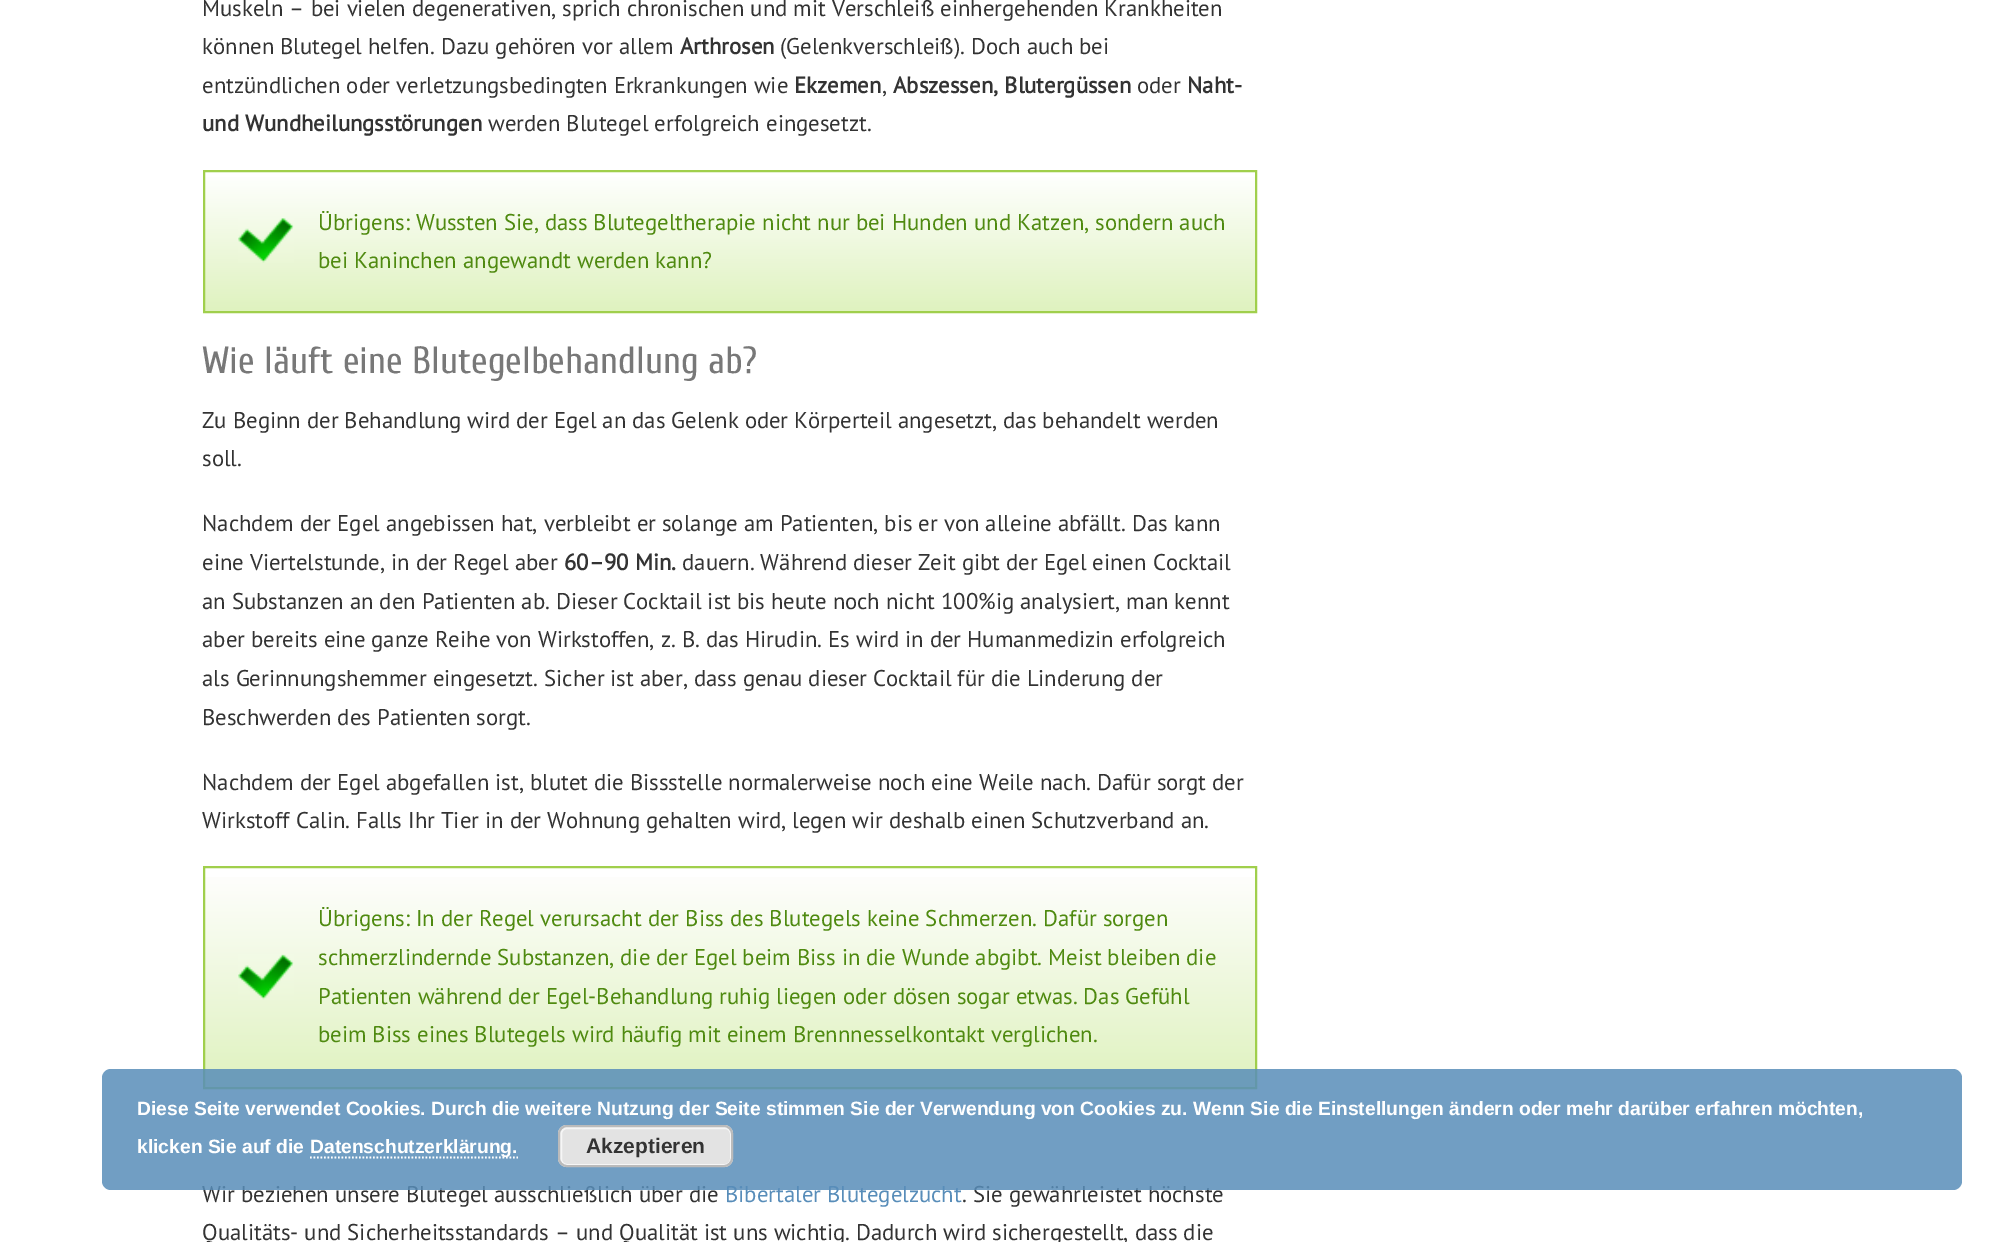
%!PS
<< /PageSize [2013 1242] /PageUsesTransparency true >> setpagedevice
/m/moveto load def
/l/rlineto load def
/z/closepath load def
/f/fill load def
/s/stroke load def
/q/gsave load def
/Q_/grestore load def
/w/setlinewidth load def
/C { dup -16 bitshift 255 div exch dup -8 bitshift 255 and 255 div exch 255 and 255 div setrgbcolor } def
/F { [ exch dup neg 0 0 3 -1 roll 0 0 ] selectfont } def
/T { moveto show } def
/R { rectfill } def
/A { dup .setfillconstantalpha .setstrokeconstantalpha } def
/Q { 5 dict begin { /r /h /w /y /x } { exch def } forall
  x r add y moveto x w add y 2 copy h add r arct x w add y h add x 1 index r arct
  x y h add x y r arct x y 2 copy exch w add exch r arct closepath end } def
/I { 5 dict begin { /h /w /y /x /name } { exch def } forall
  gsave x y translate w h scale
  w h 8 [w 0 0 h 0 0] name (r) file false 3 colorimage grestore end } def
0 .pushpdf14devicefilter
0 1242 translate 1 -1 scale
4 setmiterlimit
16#FFFFFF C
0 0 2013 1242 R
/PTSans-Regular 22.75 F
16#333333 C
(Muskeln – bei vielen degenerativen, sprich chronischen und mit Verschleiß einhergehenden Krankheiten) 202 16 T
(können Blutegel helfen. Dazu gehören vor allem) 202 54 T
/PTSans-Bold 22.75 F
(Arthrosen) 680 54 T
/PTSans-Regular 22.75 F
(\(Gelenkverschleiß\). Doch auch bei) 780 54 T
(entzündlichen oder verletzungsbedingten Erkrankungen wie) 202 93 T
/PTSans-Bold 22.75 F
(Ekzemen) 794 93 T
/PTSans-Regular 22.75 F
(,) 882 93 T
/PTSans-Bold 22.75 F
(Abszessen, Blutergüssen) 893 93 T
/PTSans-Regular 22.75 F
(oder) 1137 93 T
/PTSans-Bold 22.75 F
(Naht-) 1187 93 T
(und Wundheilungsstörungen) 202 131 T
/PTSans-Regular 22.75 F
(werden Blutegel erfolgreich eingesetzt.) 488 131 T
q 205 177 m 1050 0 l 0 134 l -1050 0 l z clip newpath
<< /ShadingType 2 /ColorSpace /DeviceRGB /Coords [730 172 730 312] /Extend [true true] /Function << /FunctionType 2 /Domain [0 1] /C0 [1 1 1] /C1 [.875 .949 .749] /N 1 >> >> shfill Q_
16#A0CF4C C
2 w
204 171 1052 141 rectstroke
(1.rgb) 238 218 56 45 I
16#4F8A10 C
(Übrigens: Wussten Sie, dass Blutegeltherapie nicht nur bei Hunden und Katzen, sondern auch) 318 230 T
(bei Kaninchen angewandt werden kann?) 318 268 T
/Cuprum-Regular 37.9 F
16#787878 C
(Wie läuft eine Blutegelbehandlung ab?) 202 373 T
/PTSans-Regular 22.75 F
16#333333 C
(Zu Beginn der Behandlung wird der Egel an das Gelenk oder Körperteil angesetzt, das behandelt werden) 202 428 T
(soll.) 202 466 T
(Nachdem der Egel angebissen hat, verbleibt er solange am Patienten, bis er von alleine abfällt. Das kann) 202 531 T
(eine Viertelstunde, in der Regel aber) 202 570 T
/PTSans-Bold 22.75 F
(60–90 Min.) 564 570 T
/PTSans-Regular 22.75 F
(dauern. Während dieser Zeit gibt der Egel einen Cocktail) 682 570 T
(an Substanzen an den Patienten ab. Dieser Cocktail ist bis heute noch nicht 100%ig analysiert, man kennt) 202 609 T
(aber bereits eine ganze Reihe von Wirkstoffen, z. B. das Hirudin. Es wird in der Humanmedizin erfolgreich) 202 647 T
(als Gerinnungshemmer eingesetzt. Sicher ist aber, dass genau dieser Cocktail für die Linderung der) 202 686 T
(Beschwerden des Patienten sorgt.) 202 725 T
(Nachdem der Egel abgefallen ist, blutet die Bissstelle normalerweise noch eine Weile nach. Dafür sorgt der) 202 790 T
(Wirkstoff Calin. Falls Ihr Tier in der Wohnung gehalten wird, legen wir deshalb einen Schutzverband an.) 202 828 T
q 205 877 m 1050 0 l 0 210 l -1050 0 l z clip newpath
<< /ShadingType 2 /ColorSpace /DeviceRGB /Coords [730 868 730 1087] /Extend [true true] /Function << /FunctionType 2 /Domain [0 1] /C0 [1 1 1] /C1 [.875 .949 .749] /N 1 >> >> shfill Q_
16#A0CF4C C
204 867 1052 221 rectstroke
(2.rgb) 238 954 56 46 I
16#4F8A10 C
(Übrigens: In der Regel verursacht der Biss des Blutegels keine Schmerzen. Dafür sorgen) 318 926 T
(schmerzlindernde Substanzen, die der Egel beim Biss in die Wunde abgibt. Meist bleiben die) 318 965 T
(Patienten während der Egel-Behandlung ruhig liegen oder dösen sogar etwas. Das Gefühl) 318 1004 T
(beim Biss eines Blutegels wird häufig mit einem Brennnesselkontakt verglichen.) 318 1042 T
16#333333 C
(Wir beziehen unsere Blutegel ausschließlich über die) 202 1202 T
16#588DB9 C
(Bibertaler Blutegelzucht) 725 1202 T
16#333333 C
(. Sie gewährleistet höchste) 962 1202 T
(Qualitäts- und Sicherheitsstandards – und Qualität ist uns wichtig. Dadurch wird sichergestellt, dass die) 202 1240 T
0.85 A
16#588DB9 C
102 1069 1860 121 9 Q f
/LiberationSans-Bold 19.25 F
1 A
16#FFFFFF C
(Diese Seite verwendet Cookies. Durch die weitere Nutzung der Seite stimmen Sie der Verwendung von Cookies zu. Wenn Sie die Einstellungen ändern oder mehr darüber erfahren möchten,) 137 1115 T
(klicken Sie auf die) 137 1153 T
1.8 w
[1.75 1.75] 0 setdash
310 1157.5 m 208 0 l s
(Datenschutzerklärung.) 310 1153 T
16#E3E3E3 C
558 1125 175 42 9 Q f
16#F6F6F6 C
2 w
[] 0 setdash
561 1128 170 37 6 Q s
16#BBBBBB C
559 1126 173 40 8 Q s
/LiberationSans-Bold 21 F
16#333333 C
(Akzeptieren) 586 1153 T
.poppdf14devicefilter showpage
